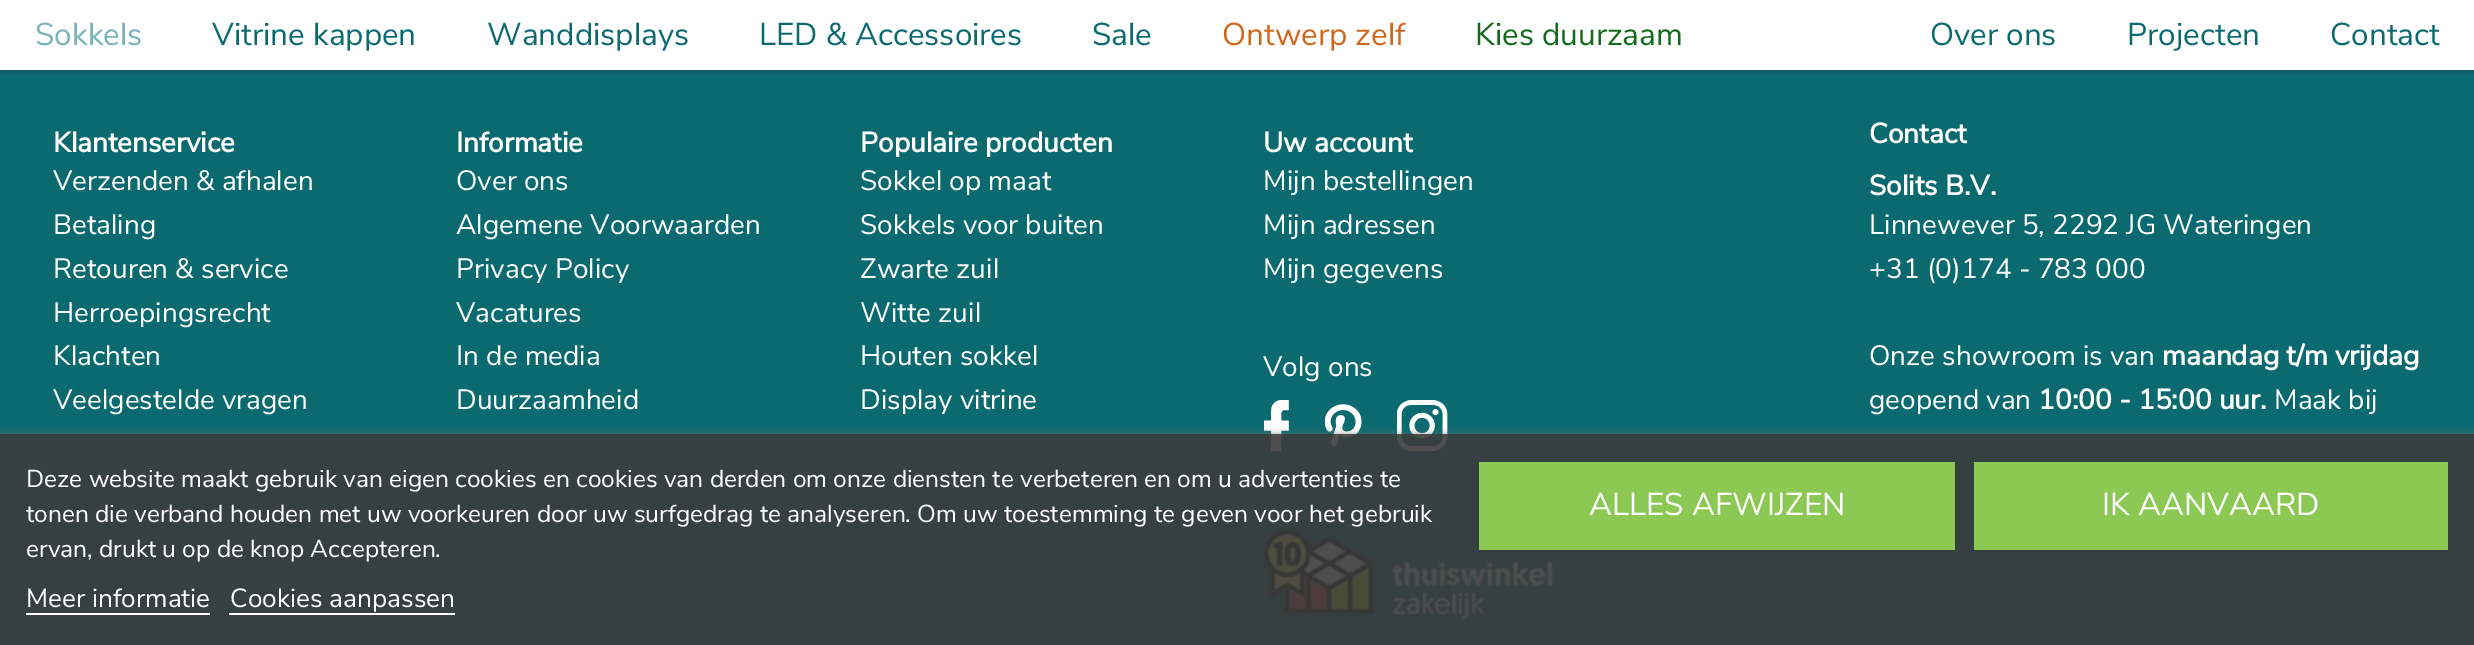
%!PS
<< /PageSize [2474 645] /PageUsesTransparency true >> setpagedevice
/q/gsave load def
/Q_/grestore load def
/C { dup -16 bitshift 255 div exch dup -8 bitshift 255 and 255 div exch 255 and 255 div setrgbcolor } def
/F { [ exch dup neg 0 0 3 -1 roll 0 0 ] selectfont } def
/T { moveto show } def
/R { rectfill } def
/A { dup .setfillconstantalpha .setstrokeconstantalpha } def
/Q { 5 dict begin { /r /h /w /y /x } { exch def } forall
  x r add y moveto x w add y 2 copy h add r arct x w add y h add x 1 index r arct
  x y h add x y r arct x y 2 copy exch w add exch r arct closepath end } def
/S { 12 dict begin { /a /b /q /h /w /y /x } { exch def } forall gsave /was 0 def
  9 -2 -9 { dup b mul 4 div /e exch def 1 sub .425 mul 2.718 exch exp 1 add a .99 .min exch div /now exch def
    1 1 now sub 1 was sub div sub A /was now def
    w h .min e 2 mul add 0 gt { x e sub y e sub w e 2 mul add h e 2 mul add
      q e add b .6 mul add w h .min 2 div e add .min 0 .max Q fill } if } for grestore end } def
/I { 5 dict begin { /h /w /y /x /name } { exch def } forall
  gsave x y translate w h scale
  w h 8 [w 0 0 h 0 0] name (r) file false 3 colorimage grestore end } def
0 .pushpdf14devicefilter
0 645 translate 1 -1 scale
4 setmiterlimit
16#0B6A70 C
0 0 2474 645 R
16#000000 C
0 2 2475 70 0 2 .15 S
16#FFFFFF C
0 0 2474 70 R
/NunitoSans-Regular 31.5 F
16#79B3B7 C
(Sokkels) 35 45 T
16#0B6A70 C
(Vitrine kappen) 212 45 T
(Wanddisplays) 487 45 T
(LED & Accessoires) 759 45 T
(Sale) 1092 45 T
16#CE671B C
(Ontwerp zelf) 1222 45 T
16#146A1C C
(Kies duurzaam) 1475 45 T
16#0B6A70 C
(Over ons) 1930 45 T
(Projecten) 2127 45 T
(Contact) 2330 45 T
/NunitoSans-Bold 28 F
16#FFFFFF C
(Klantenservice) 53 152 T
/NunitoSans-Regular 28 F
(Verzenden & afhalen) 53 190 T
(Betaling) 53 234 T
(Retouren & service) 53 278 T
(Herroepingsrecht) 53 322 T
(Klachten) 53 365 T
(Veelgestelde vragen) 53 409 T
/NunitoSans-Bold 28 F
(Informatie) 456 152 T
/NunitoSans-Regular 28 F
(Over ons) 456 190 T
(Algemene Voorwaarden) 456 234 T
(Privacy Policy) 456 278 T
(Vacatures) 456 322 T
(In de media) 456 365 T
(Duurzaamheid) 456 409 T
/NunitoSans-Bold 28 F
(Populaire producten) 860 152 T
/NunitoSans-Regular 28 F
(Sokkel op maat) 860 190 T
(Sokkels voor buiten) 860 234 T
(Zwarte zuil) 860 278 T
(Witte zuil) 860 322 T
(Houten sokkel) 860 365 T
(Display vitrine) 860 409 T
/NunitoSans-Bold 28 F
(Uw account) 1263 152 T
/NunitoSans-Regular 28 F
(Mijn bestellingen) 1263 190 T
(Mijn adressen) 1263 234 T
(Mijn gegevens) 1263 278 T
(Volg ons) 1263 376 T
(1.rgb) 1264 400 25 51 I
(2.rgb) 1325 404 37 42 I
(3.rgb) 1397 400 51 51 I
(4.rgb) 1263 529 290 90 I
/NunitoSans-Bold 28 F
(Contact) 1869 143 T
(Solits B.V.) 1869 195 T
/NunitoSans-Regular 28 F
(Linnewever 5, 2292 JG Wateringen) 1869 234 T
(+31 \(0\)174 - 783 000) 1869 278 T
(Onze showroom is van) 1869 365 T
/NunitoSans-Bold 28 F
(maandag t/m vrijdag) 2162 365 T
/NunitoSans-Regular 28 F
(geopend van) 1869 409 T
/NunitoSans-Bold 28 F
(10:00 - 15:00 uur.) 2038 409 T
/NunitoSans-Regular 28 F
(Maak bij) 2274 409 T
q
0 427 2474 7 rectclip
16#707070 C
0 436 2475 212 0 4.5 1 S
Q_
0.9 A
16#3B3B3B C
0 434 2474 211 R
/NunitoSans-Regular 24.5 F
1 A
16#FFFFFF C
(Deze website maakt gebruik van eigen cookies en cookies van derden om onze diensten te verbeteren en om u advertenties te) 26 487 T
(tonen die verband houden met uw voorkeuren door uw surfgedrag te analyseren. Om uw toestemming te geven voor het gebruik) 26 522 T
(ervan, drukt u op de knop Accepteren.) 26 557 T
/NunitoSans-Regular 26.25 F
(Meer informatie) 26 607 T
26 613 184 2 R
(Cookies aanpassen) 230 607 T
229 613 226 2 R
16#8BC954 C
1479 462 476 88 R
/NunitoSans-Regular 31.5 F
16#FFFFFF C
(ALLES AFWIJZEN) 1589 515 T
16#8BC954 C
1974 462 474 88 R
16#FFFFFF C
(IK AANVAARD) 2102 515 T
.poppdf14devicefilter showpage
